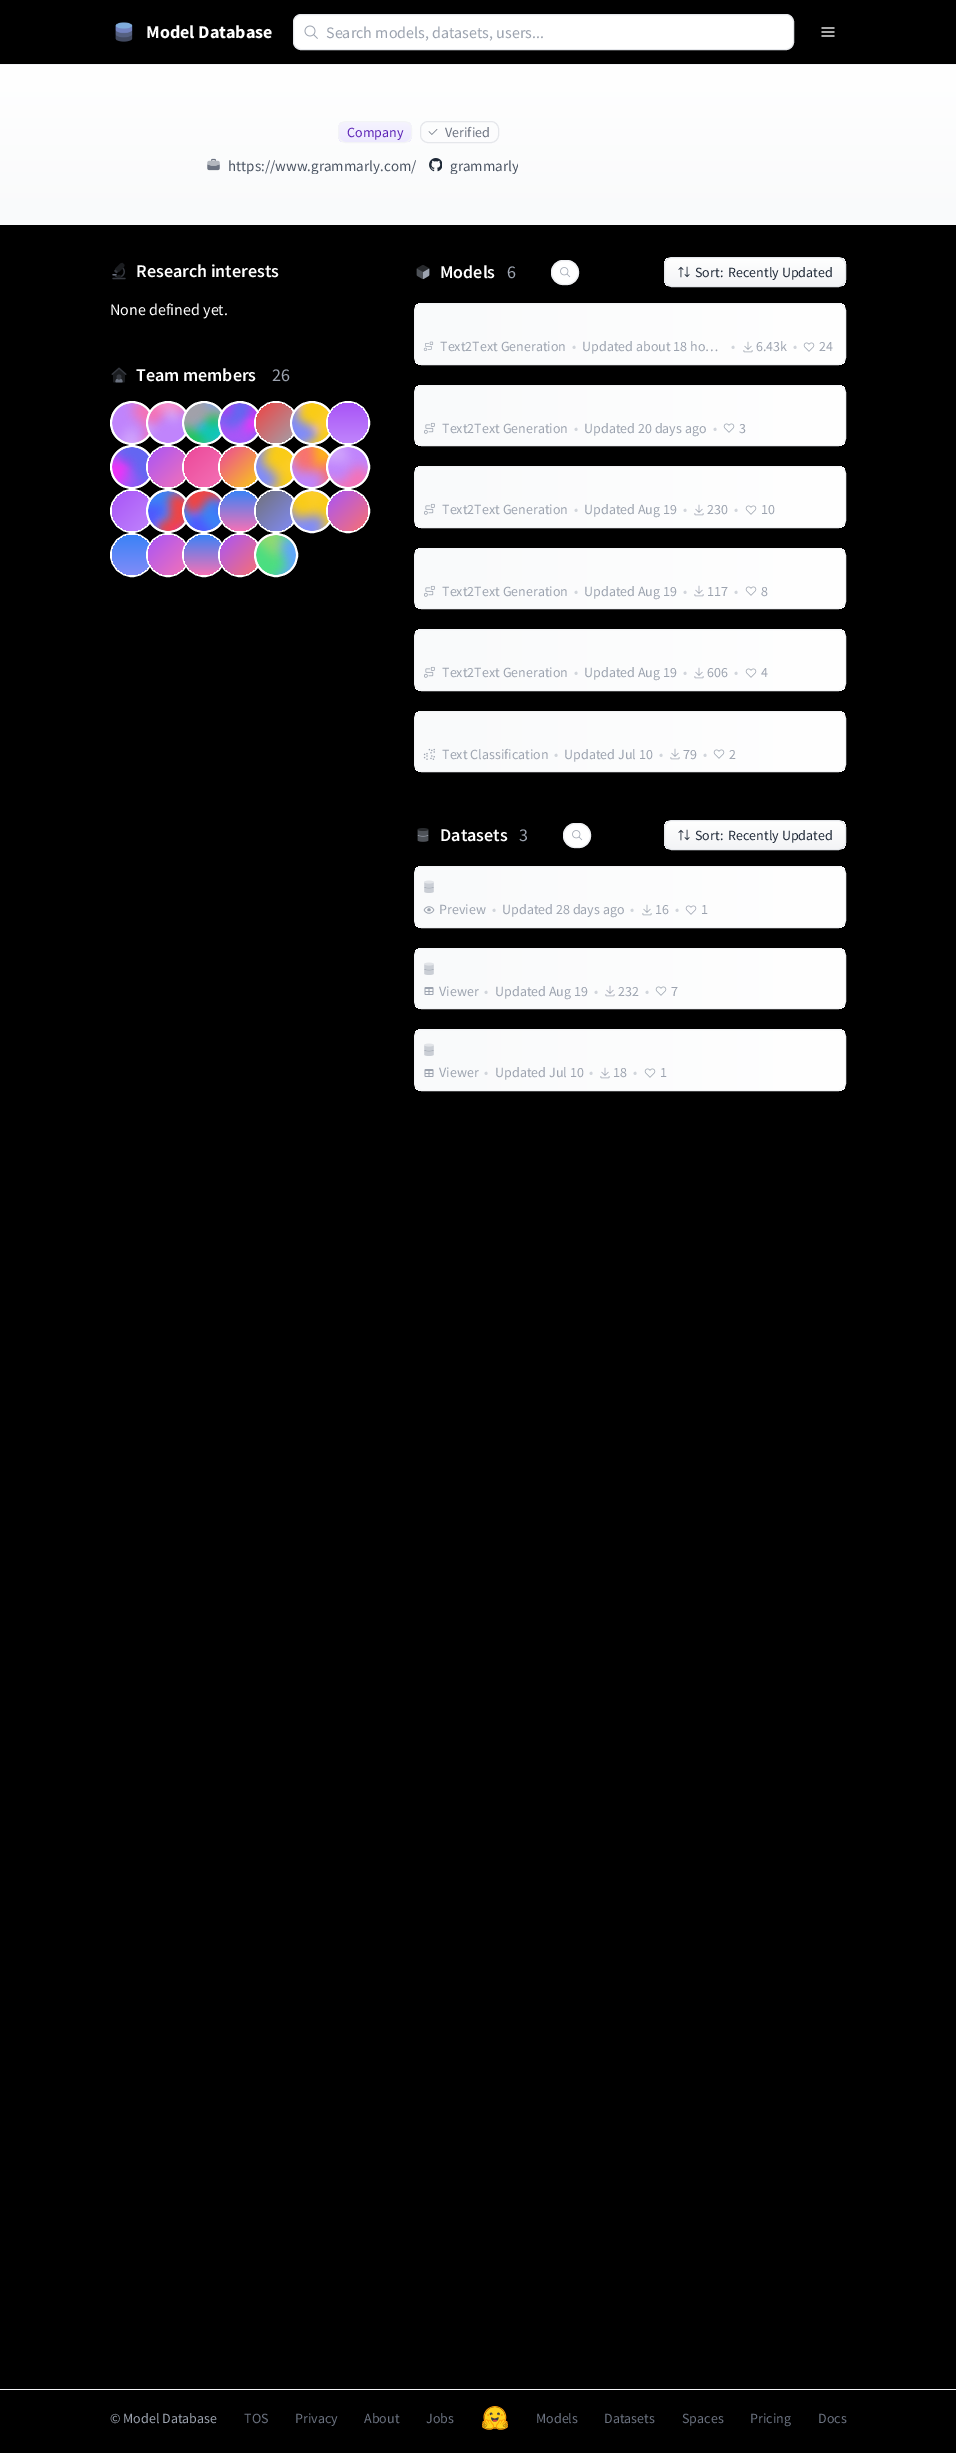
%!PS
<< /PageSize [956 2453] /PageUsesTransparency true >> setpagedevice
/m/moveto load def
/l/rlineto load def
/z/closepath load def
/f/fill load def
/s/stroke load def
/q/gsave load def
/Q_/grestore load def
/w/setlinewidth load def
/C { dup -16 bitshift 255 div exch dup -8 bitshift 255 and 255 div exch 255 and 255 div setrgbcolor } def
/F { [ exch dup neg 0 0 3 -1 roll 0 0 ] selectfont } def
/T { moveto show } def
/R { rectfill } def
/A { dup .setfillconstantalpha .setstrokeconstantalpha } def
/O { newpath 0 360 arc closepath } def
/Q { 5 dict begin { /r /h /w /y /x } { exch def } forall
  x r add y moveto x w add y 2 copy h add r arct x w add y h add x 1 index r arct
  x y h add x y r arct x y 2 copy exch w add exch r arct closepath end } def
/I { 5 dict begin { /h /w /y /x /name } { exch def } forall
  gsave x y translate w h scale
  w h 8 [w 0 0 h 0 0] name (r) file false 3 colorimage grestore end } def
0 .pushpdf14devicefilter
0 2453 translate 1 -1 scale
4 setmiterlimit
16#000000 C
0 0 956 2453 R
16#F3F4F6 C
0 64 956 1 R
(1.rgb) 115 22 18 20 I
/SourceSansPro-Bold 18 F
16#FFFFFF C
(Model Database) 146 38 T
293.5 14.5 500 35 7.5 Q q f Q_
16#E5E7EB C
s
(2.rgb) 304 25 14 14 I
/SourceSansPro-Regular 16 F
16#9CA3AF C
(Search models, datasets, users...) 326 38 T
(3.rgb) 821 27 14 10 I
q 0 65 m 956 0 l 0 160 l -956 0 l z clip newpath
<< /ShadingType 2 /ColorSpace /DeviceRGB /Coords [478 225 478 65] /Extend [true true] /Function << /FunctionType 2 /Domain [0 1] /C0 [.976 .98 .984] /C1 [1 1 1] /N 1 >> >> shfill Q_
q
338 121 74 22 8 Q clip newpath
q 338 122 m 74 0 l 0 20 l -74 0 l z clip newpath
<< /ShadingType 2 /ColorSpace /DeviceRGB /Coords [375 122 375 142] /Extend [true true] /Function << /FunctionType 2 /Domain [0 1] /C0 [.961 .953 1] /C1 [.929 .914 .996] /N 1 >> >> shfill Q_
Q_
16#F3F4F6 C
338.5 121.5 73 21 7.5 Q s
/SourceSansPro-Regular 14 F
16#5B21B6 C
(Company) 347 137 T
16#E5E7EB C
420.5 121.5 78 21 7.5 Q s
(4.rgb) 428 129 10 6 I
16#6B7280 C
(Verified) 445 137 T
(5.rgb) 207 158 13 13 I
q
206 158 211 16 rectclip
/SourceSansPro-Regular 15 F
16#4B5563 C
(https://www.grammarly.com/) 228 171 T
Q_
(6.rgb) 429 158 13 14 I
q
429 158 89 16 rectclip
/SourceSansPro-Regular 15 F
16#4B5563 C
(grammarly) 450 171 T
Q_
(7.rgb) 112 262 14 18 I
/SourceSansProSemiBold-SemiBold 18 F
16#FFFFFF C
(Research interests) 136 277 T
/SourceSansPro-Regular 16 F
(None defined yet.) 110 315 T
(8.rgb) 111 367 16 16 I
/SourceSansProSemiBold-SemiBold 18 F
(Team members) 136 381 T
/SourceSansPro-Regular 18 F
16#9CA3AF C
(26) 272 381 T
16#F3F4F6 C
132 423 21 O q f Q_
16#FFFFFF C
2 w
s
(9.rgb) 112 403 37 40 I
16#F3F4F6 C
168 423 21 O q f Q_
16#FFFFFF C
s
(10.rgb) 148 403 37 40 I
16#F3F4F6 C
204 423 21 O q f Q_
16#FFFFFF C
s
(11.rgb) 184 403 37 40 I
16#F3F4F6 C
240 423 21 O q f Q_
16#FFFFFF C
s
(12.rgb) 220 403 38 40 I
276 423 21 O s
q 276 423 20 O clip newpath
<< /ShadingType 2 /ColorSpace /DeviceRGB /Coords [256 403 296 443] /Extend [true true] /Function << /FunctionType 2 /Domain [0 1] /C0 [.937 .267 .267] /C1 [.631 .631 .667] /N 1 >> >> shfill Q_
16#F3F4F6 C
312 423 21 O q f Q_
16#FFFFFF C
s
(13.rgb) 292 403 38 40 I
348 423 21 O s
q 348 423 20 O clip newpath
<< /ShadingType 2 /ColorSpace /DeviceRGB /Coords [328 403 328 443] /Extend [true true] /Function << /FunctionType 2 /Domain [0 1] /C0 [.659 .333 .969] /C1 [.753 .518 .988] /N 1 >> >> shfill Q_
16#F3F4F6 C
132 467 21 O q f Q_
16#FFFFFF C
s
(14.rgb) 112 447 38 40 I
168 467 21 O s
q 168 467 20 O clip newpath
<< /ShadingType 2 /ColorSpace /DeviceRGB /Coords [148 447 188 487] /Extend [true true] /Function << /FunctionType 2 /Domain [0 1] /C0 [.659 .333 .969] /C1 [.957 .447 .714] /N 1 >> >> shfill Q_
204 467 21 O s
q 204 467 20 O clip newpath
<< /ShadingType 2 /ColorSpace /DeviceRGB /Coords [184 447 224 487] /Extend [true true] /Function << /FunctionType 2 /Domain [0 1] /C0 [.925 .282 .6] /C1 [.957 .447 .714] /N 1 >> >> shfill Q_
240 467 21 O s
q 240 467 20 O clip newpath
<< /ShadingType 2 /ColorSpace /DeviceRGB /Coords [220 447 260 487] /Extend [true true] /Function << /FunctionType 2 /Domain [0 1] /C0 [.925 .282 .6] /C1 [.98 .8 .082] /N 1 >> >> shfill Q_
16#F3F4F6 C
276 467 21 O q f Q_
16#FFFFFF C
s
(15.rgb) 256 447 37 40 I
16#F3F4F6 C
312 467 21 O q f Q_
16#FFFFFF C
s
(16.rgb) 292 447 37 40 I
16#F3F4F6 C
348 467 21 O q f Q_
16#FFFFFF C
s
(17.rgb) 328 447 40 40 I
132 511 21 O s
q 132 511 20 O clip newpath
<< /ShadingType 2 /ColorSpace /DeviceRGB /Coords [112 491 152 531] /Extend [true true] /Function << /FunctionType 2 /Domain [0 1] /C0 [.659 .333 .969] /C1 [.753 .518 .988] /N 1 >> >> shfill Q_
16#F3F4F6 C
168 511 21 O q f Q_
16#FFFFFF C
s
(18.rgb) 148 491 37 40 I
16#F3F4F6 C
204 511 21 O q f Q_
16#FFFFFF C
s
(19.rgb) 184 491 38 40 I
240 511 21 O s
q 240 511 20 O clip newpath
<< /ShadingType 2 /ColorSpace /DeviceRGB /Coords [220 491 220 531] /Extend [true true] /Function << /FunctionType 2 /Domain [0 1] /C0 [.231 .51 .965] /C1 [.957 .447 .714] /N 1 >> >> shfill Q_
276 511 21 O s
q 276 511 20 O clip newpath
<< /ShadingType 2 /ColorSpace /DeviceRGB /Coords [256 491 296 531] /Extend [true true] /Function << /FunctionType 2 /Domain [0 1] /C0 [.443 .443 .478] /C1 [.506 .549 .973] /N 1 >> >> shfill Q_
16#F3F4F6 C
312 511 21 O q f Q_
16#FFFFFF C
s
(20.rgb) 292 491 38 40 I
348 511 21 O s
q 348 511 20 O clip newpath
<< /ShadingType 2 /ColorSpace /DeviceRGB /Coords [328 491 368 531] /Extend [true true] /Function << /FunctionType 2 /Domain [0 1] /C0 [.659 .333 .969] /C1 [.973 .443 .443] /N 1 >> >> shfill Q_
132 555 21 O s
q 132 555 20 O clip newpath
<< /ShadingType 2 /ColorSpace /DeviceRGB /Coords [112 535 112 575] /Extend [true true] /Function << /FunctionType 2 /Domain [0 1] /C0 [.231 .51 .965] /C1 [.506 .549 .973] /N 1 >> >> shfill Q_
168 555 21 O s
q 168 555 20 O clip newpath
<< /ShadingType 2 /ColorSpace /DeviceRGB /Coords [148 535 188 575] /Extend [true true] /Function << /FunctionType 2 /Domain [0 1] /C0 [.659 .333 .969] /C1 [.957 .447 .714] /N 1 >> >> shfill Q_
204 555 21 O s
q 204 555 20 O clip newpath
<< /ShadingType 2 /ColorSpace /DeviceRGB /Coords [184 535 184 575] /Extend [true true] /Function << /FunctionType 2 /Domain [0 1] /C0 [.231 .51 .965] /C1 [.957 .447 .714] /N 1 >> >> shfill Q_
240 555 21 O s
q 240 555 20 O clip newpath
<< /ShadingType 2 /ColorSpace /DeviceRGB /Coords [220 535 260 575] /Extend [true true] /Function << /FunctionType 2 /Domain [0 1] /C0 [.659 .333 .969] /C1 [.973 .443 .443] /N 1 >> >> shfill Q_
16#F3F4F6 C
276 555 21 O q f Q_
16#FFFFFF C
s
(21.rgb) 256 535 40 40 I
(22.rgb) 416 265 14 15 I
/SourceSansProSemiBold-SemiBold 18 F
(Models) 440 278 T
/SourceSansPro-Regular 18 F
16#9CA3AF C
(6) 507 278 T
16#FFFFFF C
551 260 28 25 12.5 Q f
0.7 A
16#E5E7EB C
1 w
551.5 260.5 27 24 12 Q s
1 A
(23.rgb) 560 267 11 11 I
q
664 257 182 30 8 Q clip newpath
q 664 258 m 182 0 l 0 28 l -182 0 l z clip newpath
<< /ShadingType 2 /ColorSpace /DeviceRGB /Coords [755 258 755 286] /Extend [true true] /Function << /FunctionType 2 /Domain [0 1] /C0 [1 1 1] /C1 [.953 .957 .965] /N 1 >> >> shfill Q_
Q_
664.5 257.5 181 29 7.5 Q s
(24.rgb) 678 266 12 12 I
/SourceSansPro-Regular 14 F
16#1F2937 C
(Sort:) 695 277 T
(Recently Updated) 728 277 T
q
414 303 432 62 8 Q clip newpath
q 415 303 m 430 0 l 0 62 l -430 0 l z clip newpath
<< /ShadingType 2 /ColorSpace /DeviceRGB /Coords [415 334 845 334] /Extend [true true] /Function << /FunctionType 2 /Domain [0 1] /C0 [.976 .98 .984] /C1 [1 1 1] /N 1 >> >> shfill Q_
Q_
16#F3F4F6 C
414.5 303.5 431 61 7.5 Q s
(25.rgb) 423 341 11 10 I
16#9CA3AF C
(Text2Text Generation) 440 351 T
16#D1D5DB C
(•) 572 351 T
16#9CA3AF C
(Updated about 18 ho…) 582 351 T
16#D1D5DB C
(•) 731 351 T
(26.rgb) 743 341 10 12 I
16#9CA3AF C
(6.43k) 756 351 T
16#D1D5DB C
(•) 793 351 T
(27.rgb) 803 342 12 10 I
16#9CA3AF C
(24) 819 351 T
q
414 385 432 61 8 Q clip newpath
q 415 385 m 430 0 l 0 61 l -430 0 l z clip newpath
<< /ShadingType 2 /ColorSpace /DeviceRGB /Coords [415 416 845 416] /Extend [true true] /Function << /FunctionType 2 /Domain [0 1] /C0 [.976 .98 .984] /C1 [1 1 1] /N 1 >> >> shfill Q_
Q_
16#F3F4F6 C
414.5 385.5 431 60 7.5 Q s
(28.rgb) 424 422 11 12 I
16#9CA3AF C
(Text2Text Generation) 442 433 T
16#D1D5DB C
(•) 574 433 T
16#9CA3AF C
(Updated 20 days ago) 584 433 T
16#D1D5DB C
(•) 713 433 T
(29.rgb) 723 423 12 10 I
16#9CA3AF C
(3) 739 433 T
q
414 466 432 62 8 Q clip newpath
q 415 466 m 430 0 l 0 62 l -430 0 l z clip newpath
<< /ShadingType 2 /ColorSpace /DeviceRGB /Coords [415 497 845 497] /Extend [true true] /Function << /FunctionType 2 /Domain [0 1] /C0 [.976 .98 .984] /C1 [1 1 1] /N 1 >> >> shfill Q_
Q_
16#F3F4F6 C
414.5 466.5 431 61 7.5 Q s
(28.rgb) 424 503 11 12 I
16#9CA3AF C
(Text2Text Generation) 442 514 T
16#D1D5DB C
(•) 574 514 T
16#9CA3AF C
(Updated Aug 19) 584 514 T
16#D1D5DB C
(•) 683 514 T
(30.rgb) 694 504 10 12 I
16#9CA3AF C
(230) 707 514 T
16#D1D5DB C
(•) 734 514 T
(31.rgb) 745 505 12 10 I
16#9CA3AF C
(10) 761 514 T
q
414 548 432 61 8 Q clip newpath
q 415 548 m 430 0 l 0 61 l -430 0 l z clip newpath
<< /ShadingType 2 /ColorSpace /DeviceRGB /Coords [415 579 845 579] /Extend [true true] /Function << /FunctionType 2 /Domain [0 1] /C0 [.976 .98 .984] /C1 [1 1 1] /N 1 >> >> shfill Q_
Q_
16#F3F4F6 C
414.5 548.5 431 60 7.5 Q s
(28.rgb) 424 585 11 12 I
16#9CA3AF C
(Text2Text Generation) 442 596 T
16#D1D5DB C
(•) 574 596 T
16#9CA3AF C
(Updated Aug 19) 584 596 T
16#D1D5DB C
(•) 683 596 T
(30.rgb) 694 585 10 12 I
16#9CA3AF C
(117) 707 596 T
16#D1D5DB C
(•) 734 596 T
(31.rgb) 745 586 12 10 I
16#9CA3AF C
(8) 761 596 T
q
414 629 432 62 8 Q clip newpath
q 415 629 m 430 0 l 0 62 l -430 0 l z clip newpath
<< /ShadingType 2 /ColorSpace /DeviceRGB /Coords [415 660 845 660] /Extend [true true] /Function << /FunctionType 2 /Domain [0 1] /C0 [.976 .98 .984] /C1 [1 1 1] /N 1 >> >> shfill Q_
Q_
16#F3F4F6 C
414.5 629.5 431 61 7.5 Q s
(28.rgb) 424 666 11 12 I
16#9CA3AF C
(Text2Text Generation) 442 677 T
16#D1D5DB C
(•) 574 677 T
16#9CA3AF C
(Updated Aug 19) 584 677 T
16#D1D5DB C
(•) 683 677 T
(30.rgb) 694 667 10 12 I
16#9CA3AF C
(606) 707 677 T
16#D1D5DB C
(•) 734 677 T
(31.rgb) 745 668 12 10 I
16#9CA3AF C
(4) 761 677 T
q
414 711 432 61 8 Q clip newpath
q 415 711 m 430 0 l 0 61 l -430 0 l z clip newpath
<< /ShadingType 2 /ColorSpace /DeviceRGB /Coords [415 742 845 742] /Extend [true true] /Function << /FunctionType 2 /Domain [0 1] /C0 [.976 .98 .984] /C1 [1 1 1] /N 1 >> >> shfill Q_
Q_
16#F3F4F6 C
414.5 711.5 431 60 7.5 Q s
(32.rgb) 423 748 12 12 I
16#9CA3AF C
(Text Classification) 442 759 T
16#D1D5DB C
(•) 554 759 T
16#9CA3AF C
(Updated Jul 10) 564 759 T
16#D1D5DB C
(•) 659 759 T
(33.rgb) 670 748 10 12 I
16#9CA3AF C
(79) 683 759 T
16#D1D5DB C
(•) 703 759 T
(34.rgb) 713 749 12 10 I
16#9CA3AF C
(2) 729 759 T
(35.rgb) 417 828 12 14 I
/SourceSansProSemiBold-SemiBold 18 F
16#FFFFFF C
(Datasets) 440 841 T
/SourceSansPro-Regular 18 F
16#9CA3AF C
(3) 519 841 T
16#FFFFFF C
563 823 28 25 12.5 Q f
0.7 A
16#E5E7EB C
563.5 823.5 27 24 12 Q s
1 A
(23.rgb) 572 830 11 11 I
q
664 820 182 30 8 Q clip newpath
q 664 821 m 182 0 l 0 28 l -182 0 l z clip newpath
<< /ShadingType 2 /ColorSpace /DeviceRGB /Coords [755 821 755 849] /Extend [true true] /Function << /FunctionType 2 /Domain [0 1] /C0 [1 1 1] /C1 [.953 .957 .965] /N 1 >> >> shfill Q_
Q_
664.5 820.5 181 29 7.5 Q s
(24.rgb) 678 829 12 12 I
/SourceSansPro-Regular 14 F
16#1F2937 C
(Sort:) 695 840 T
(Recently Updated) 728 840 T
q
414 866 432 62 8 Q clip newpath
q 415 866 m 430 0 l 0 62 l -430 0 l z clip newpath
<< /ShadingType 2 /ColorSpace /DeviceRGB /Coords [415 897 845 897] /Extend [true true] /Function << /FunctionType 2 /Domain [0 1] /C0 [.976 .98 .984] /C1 [1 1 1] /N 1 >> >> shfill Q_
Q_
16#F3F4F6 C
414.5 866.5 431 61 7.5 Q s
(36.rgb) 424 880 10 13 I
(37.rgb) 423 906 12 8 I
16#9CA3AF C
(Preview) 439 914 T
16#D1D5DB C
(•) 492 914 T
16#9CA3AF C
(Updated 28 days ago) 502 914 T
16#D1D5DB C
(•) 630 914 T
(38.rgb) 642 904 10 12 I
16#9CA3AF C
(16) 655 914 T
16#D1D5DB C
(•) 675 914 T
(39.rgb) 685 905 12 10 I
16#9CA3AF C
(1) 701 914 T
q
414 948 432 61 8 Q clip newpath
q 415 948 m 430 0 l 0 61 l -430 0 l z clip newpath
<< /ShadingType 2 /ColorSpace /DeviceRGB /Coords [415 979 845 979] /Extend [true true] /Function << /FunctionType 2 /Domain [0 1] /C0 [.976 .98 .984] /C1 [1 1 1] /N 1 >> >> shfill Q_
Q_
16#F3F4F6 C
414.5 948.5 431 60 7.5 Q s
(36.rgb) 424 962 10 13 I
(40.rgb) 424 987 10 8 I
16#9CA3AF C
(Viewer) 439 996 T
16#D1D5DB C
(•) 484 996 T
16#9CA3AF C
(Updated Aug 19) 495 996 T
16#D1D5DB C
(•) 594 996 T
(41.rgb) 605 985 10 12 I
16#9CA3AF C
(232) 618 996 T
16#D1D5DB C
(•) 645 996 T
(42.rgb) 655 986 12 10 I
16#9CA3AF C
(7) 671 996 T
q
414 1029 432 62 8 Q clip newpath
q 415 1029 m 430 0 l 0 62 l -430 0 l z clip newpath
<< /ShadingType 2 /ColorSpace /DeviceRGB /Coords [415 1060 845 1060] /Extend [true true] /Function << /FunctionType 2 /Domain [0 1] /C0 [.976 .98 .984] /C1 [1 1 1] /N 1 >> >> shfill Q_
Q_
16#F3F4F6 C
414.5 1029.5 431 61 7.5 Q s
(36.rgb) 424 1043 10 13 I
(40.rgb) 424 1069 10 8 I
16#9CA3AF C
(Viewer) 439 1077 T
16#D1D5DB C
(•) 484 1077 T
16#9CA3AF C
(Updated Jul 10) 495 1077 T
16#D1D5DB C
(•) 589 1077 T
(41.rgb) 600 1067 10 12 I
16#9CA3AF C
(18) 613 1077 T
16#D1D5DB C
(•) 633 1077 T
(43.rgb) 644 1068 12 10 I
16#9CA3AF C
(1) 660 1077 T
16#F3F4F6 C
0 2389 956 1 R
16#9CA3AF C
(© Model Database) 110 2423 T
16#6B7280 C
(TOS) 244 2423 T
(Privacy) 295 2423 T
(About) 364 2423 T
(Jobs) 426 2423 T
(44.rgb) 482 2406 26 24 I
(Models) 536 2423 T
(Datasets) 604 2423 T
(Spaces) 682 2423 T
(Pricing) 750 2423 T
(Docs) 818 2423 T
.poppdf14devicefilter showpage
